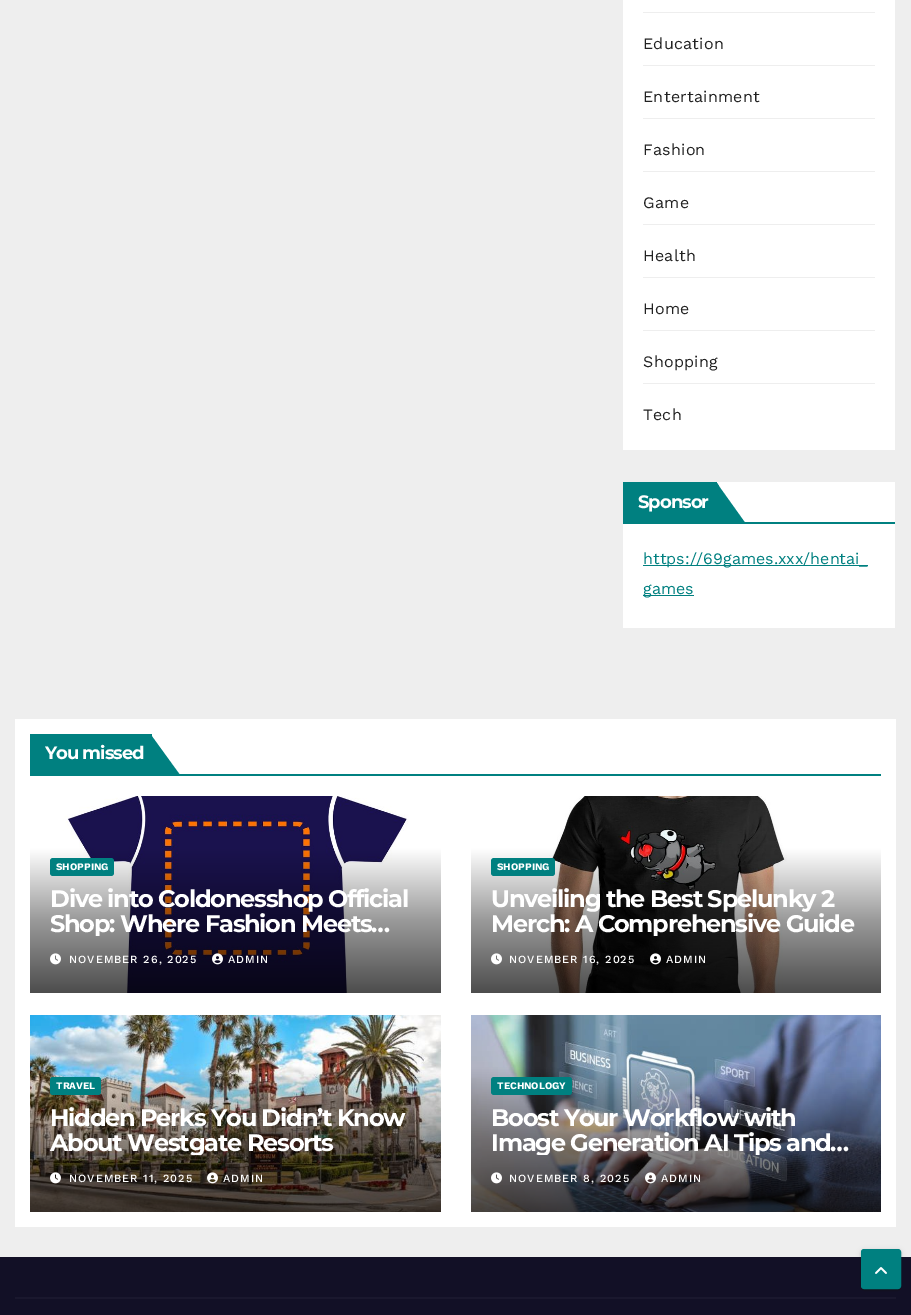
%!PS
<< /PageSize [911 1315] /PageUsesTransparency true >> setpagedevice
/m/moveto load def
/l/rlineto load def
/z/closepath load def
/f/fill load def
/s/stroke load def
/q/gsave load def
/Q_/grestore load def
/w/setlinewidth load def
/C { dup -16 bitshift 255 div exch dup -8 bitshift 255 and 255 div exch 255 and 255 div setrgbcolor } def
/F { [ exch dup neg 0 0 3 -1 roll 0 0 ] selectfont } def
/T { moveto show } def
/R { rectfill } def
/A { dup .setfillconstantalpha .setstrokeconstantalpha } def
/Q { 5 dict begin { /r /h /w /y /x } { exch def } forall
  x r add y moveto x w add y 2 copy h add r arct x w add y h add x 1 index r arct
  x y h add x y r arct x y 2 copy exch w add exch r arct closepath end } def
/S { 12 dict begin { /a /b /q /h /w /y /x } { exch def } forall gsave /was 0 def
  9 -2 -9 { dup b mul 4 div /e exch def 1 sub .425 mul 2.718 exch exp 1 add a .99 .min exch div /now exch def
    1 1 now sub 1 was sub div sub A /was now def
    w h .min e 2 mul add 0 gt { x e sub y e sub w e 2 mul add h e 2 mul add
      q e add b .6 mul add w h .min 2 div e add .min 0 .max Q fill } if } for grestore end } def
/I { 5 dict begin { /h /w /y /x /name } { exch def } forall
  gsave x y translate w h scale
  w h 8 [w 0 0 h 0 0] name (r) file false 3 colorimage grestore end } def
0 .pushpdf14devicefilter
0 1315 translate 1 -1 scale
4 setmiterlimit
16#EEEEEE C
0 0 911 1315 R
16#FFFFFF C
623 0 272 450 R
16#EEEEEE C
643 12 232 1 R
643 65 232 1 R
/WorkSans-Regular 16 F
16#222222 C
643 49 m .25 0 (Education) ashow
16#EEEEEE C
643 118 232 1 R
16#222222 C
643 102 m .25 0 (Entertainment) ashow
16#EEEEEE C
643 171 232 1 R
16#222222 C
643 155 m .25 0 (Fashion) ashow
16#EEEEEE C
643 224 232 1 R
16#222222 C
643 208 m .25 0 (Game) ashow
16#EEEEEE C
643 277 232 1 R
16#222222 C
643 261 m .25 0 (Health) ashow
16#EEEEEE C
643 330 232 1 R
16#222222 C
643 314 m .25 0 (Home) ashow
16#EEEEEE C
643 383 232 1 R
16#222222 C
643 367 m .25 0 (Shopping) ashow
643 420 m .25 0 (Tech) ashow
16#FFFFFF C
623 482 272 146 R
16#008080 C
623 522 272 2 R
623 482 94 40 R
/Montserrat-Bold 18 F
16#FFFFFF C
638 508 m -1 0 (Sponsor) ashow
16#008080 C
716 482 m 0 42 l 30 0 l z f
717 483 m -1 -1 l 0 42 l 3 -3 l 0 -35 l z f
643 565 225 1 R
/WorkSans-Regular 16 F
(https://69games.xxx/hentai_) 643 564 T
643 595 51 1 R
(games) 643 594 T
16#FFFFFF C
15 719 881 508 R
16#008080 C
30 774 851 2 R
30 734 122 40 R
/Montserrat-Bold 18 F
16#FFFFFF C
45 759 m -1 0 (You missed) ashow
16#008080 C
180 775 m -29 0 l 0 -40 l z f
(1.rgb) 30 796 411 197 I
50 858 64 18 3 Q f
/WorkSans-Bold 10 F
16#FFFFFF C
(SHOPPING) 56 870 T
/Montserrat-Bold 24 F
50 907 m -1.2 0 (Dive into Coldonesshop Official) ashow
q
50 886 371 50 rectclip
50 932 m -1.2 0 (Shop: Where Fashion Meets…) ashow
Q_
(2.rgb) 50 953 11 12 I
/WorkSans-Medium 11 F
69 963 m 1 0 (NOVEMBER 26, 2025) ashow
(3.rgb) 212 953 11 12 I
228 963 m 1 0 (ADMIN) ashow
(4.rgb) 471 796 410 197 I
16#008080 C
491 858 64 18 3 Q f
/WorkSans-Bold 10 F
16#FFFFFF C
(SHOPPING) 497 870 T
/Montserrat-Bold 24 F
491 907 m -1.2 0 (Unveiling the Best Spelunky 2) ashow
q
491 886 370 50 rectclip
491 932 m -1.2 0 (Merch: A Comprehensive Guide) ashow
Q_
(2.rgb) 491 953 11 12 I
/WorkSans-Medium 11 F
509 963 m 1 0 (NOVEMBER 16, 2025) ashow
(5.rgb) 650 953 11 12 I
666 963 m 1 0 (ADMIN) ashow
(6.rgb) 30 1015 411 197 I
16#008080 C
50 1077 51 18 3 Q f
/WorkSans-Bold 10 F
16#FFFFFF C
(TRAVEL) 56 1089 T
/Montserrat-Bold 24 F
50 1126 m -1.2 0 (Hidden Perks You Didn’t Know) ashow
q
50 1105 371 50 rectclip
50 1151 m -1.2 0 (About Westgate Resorts) ashow
Q_
(7.rgb) 50 1172 11 12 I
/WorkSans-Medium 11 F
69 1182 m 1 0 (NOVEMBER 11, 2025) ashow
(8.rgb) 207 1172 11 12 I
223 1182 m 1 0 (ADMIN) ashow
(9.rgb) 471 1015 410 197 I
16#008080 C
491 1077 81 18 3 Q f
/WorkSans-Bold 10 F
16#FFFFFF C
(TECHNOLOGY) 497 1089 T
/Montserrat-Bold 24 F
491 1126 m -1.2 0 (Boost Your Workflow with) ashow
q
491 1105 370 50 rectclip
491 1151 m -1.2 0 (Image Generation AI Tips and…) ashow
Q_
(10.rgb) 491 1172 11 12 I
/WorkSans-Medium 11 F
509 1182 m 1 0 (NOVEMBER 8, 2025) ashow
(11.rgb) 645 1172 11 12 I
661 1182 m 1 0 (ADMIN) ashow
16#121026 C
0 1257 911 58 R
16#1A182E C
15 1297 881 2 R
16#000000 C
861 1250 40 40 3 2.5 .12 S
863 1254 36 36 1 .5 .2 S
861 1251 40 40 3 1 .14 S
16#008080 C
862 1250 38 38 2 Q q f Q_
2 w
s
(12.rgb) 875 1267 12 7 I
.poppdf14devicefilter showpage
